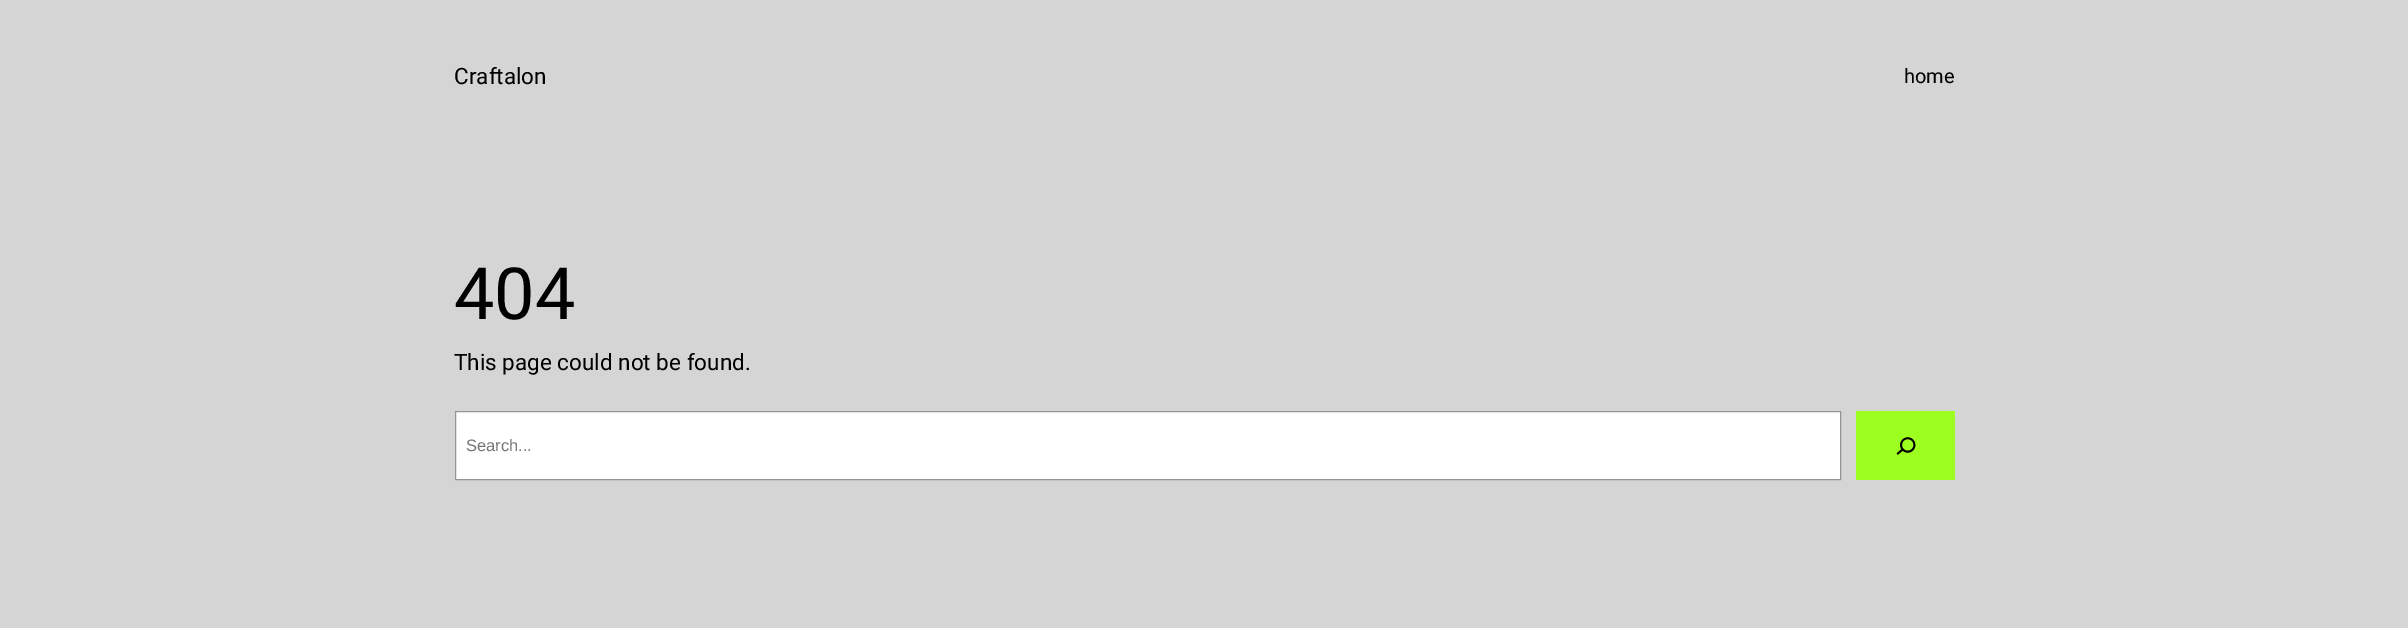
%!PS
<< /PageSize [2408 628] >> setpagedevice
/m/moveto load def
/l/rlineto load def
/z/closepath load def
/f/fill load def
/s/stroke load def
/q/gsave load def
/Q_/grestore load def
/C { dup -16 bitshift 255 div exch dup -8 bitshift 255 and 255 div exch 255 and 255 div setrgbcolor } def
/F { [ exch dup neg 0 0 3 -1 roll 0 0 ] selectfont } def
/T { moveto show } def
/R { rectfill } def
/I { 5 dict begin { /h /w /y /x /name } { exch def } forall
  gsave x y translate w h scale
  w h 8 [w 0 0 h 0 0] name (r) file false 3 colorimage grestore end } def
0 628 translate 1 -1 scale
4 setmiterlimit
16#D5D5D5 C
0 0 2408 628 R
/Roboto-Regular 22.5 F
16#000000 C
(Craftalon) 454 84 T
/Roboto-Regular 20 F
(home) 1904 83 T
/Roboto-Regular 72 F
(404) 454 319 T
/Roboto-Regular 22.5 F
(This page could not be found.) 454 370 T
16#FFFFFF C
455.5 411.5 m 1385 0 l 0 68 l -1385 0 l z q f Q_
16#949494 C
s
/LiberationSans-Regular 16.5 F
16#757575 C
(Search...) 466 451 T
16#9DFF20 C
1856 411 99 69 R
(1.rgb) 1896 437 20 18 I
showpage
